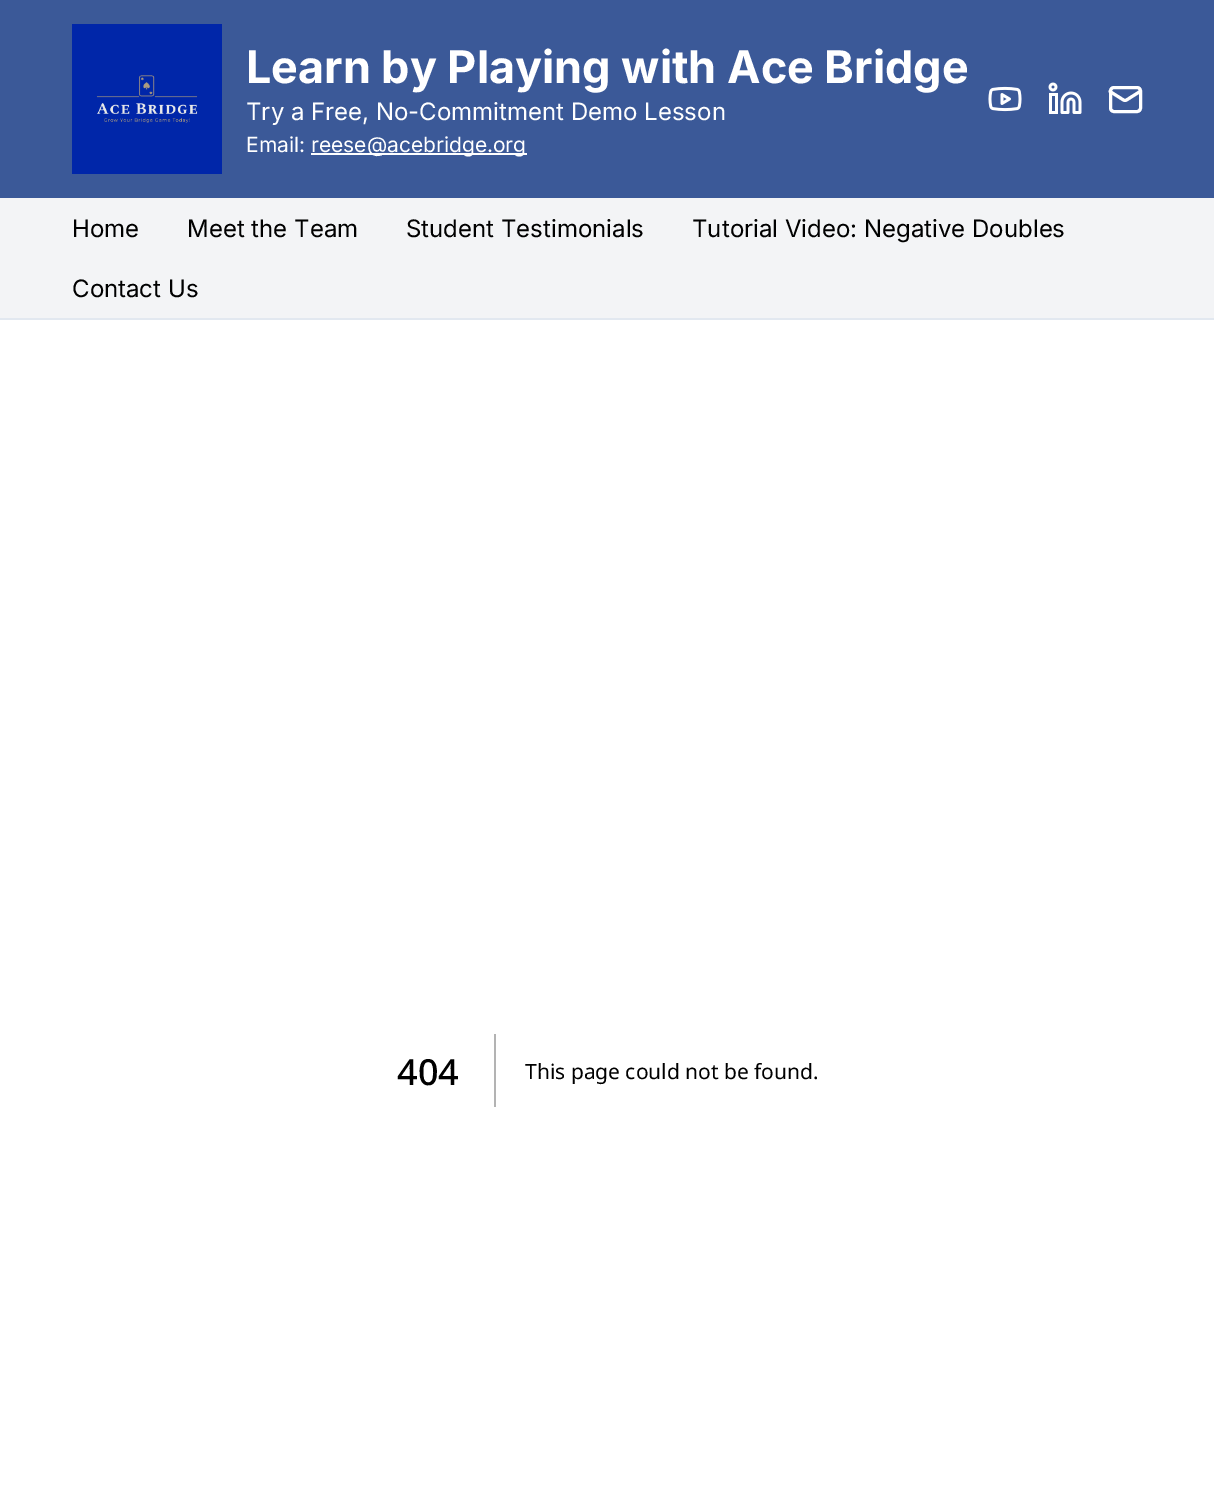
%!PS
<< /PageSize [1214 1501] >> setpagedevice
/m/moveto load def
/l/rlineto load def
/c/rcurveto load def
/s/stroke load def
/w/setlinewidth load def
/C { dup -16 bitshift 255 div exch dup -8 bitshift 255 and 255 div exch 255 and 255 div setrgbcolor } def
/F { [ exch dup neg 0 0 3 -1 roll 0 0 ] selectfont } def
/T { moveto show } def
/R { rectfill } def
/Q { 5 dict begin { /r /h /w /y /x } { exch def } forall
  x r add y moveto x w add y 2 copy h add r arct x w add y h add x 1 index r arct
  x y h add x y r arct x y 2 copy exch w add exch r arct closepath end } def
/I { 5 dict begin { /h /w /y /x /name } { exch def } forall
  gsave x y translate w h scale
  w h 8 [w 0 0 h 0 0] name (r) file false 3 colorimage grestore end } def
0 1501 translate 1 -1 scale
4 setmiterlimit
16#FFFFFF C
0 0 1214 1501 R
16#3B5998 C
0 0 1214 198 R
(1.rgb) 72 24 150 150 I
/Inter-Bold 45 F
16#FFFFFF C
(Learn by Playing with Ace Bridge) 246 83 T
/Inter-Regular 24 F
(Try a Free, No-Commitment Demo Lesson) 246 120 T
/Inter-Regular 21 F
(Email:) 246 152 T
311 153 216 2 R
(reese@acebridge.org) 311 152 T
(2.rgb) 988 86 34 26 I
(3.rgb) 1048 82 34 32 I
3 w
1110.5 87.5 30 24 3.5 Q s
1 setlinecap
1 setlinejoin
1140 91.5 m -13.5 8.5 l -1 .5 -2 .5 -3 0 c -13.5 -8.5 l s
16#F3F4F6 C
0 198 1214 120 R
16#E2E8F0 C
0 318 1214 2 R
/Inter-Regular 24 F
16#000000 C
(Home) 72 237 T
(Meet the Team) 187 237 T
(Student Testimonials) 406 237 T
(Tutorial Video: Negative Doubles) 692 237 T
(Contact Us) 72 297 T
16#B3B3B3 C
494 1034 2 73 R
/NotoSans-Medium 36 F
16#000000 C
(404) 397 1085 T
/NotoSans-Regular 21 F
(This page could not be found.) 525 1079 T
showpage
